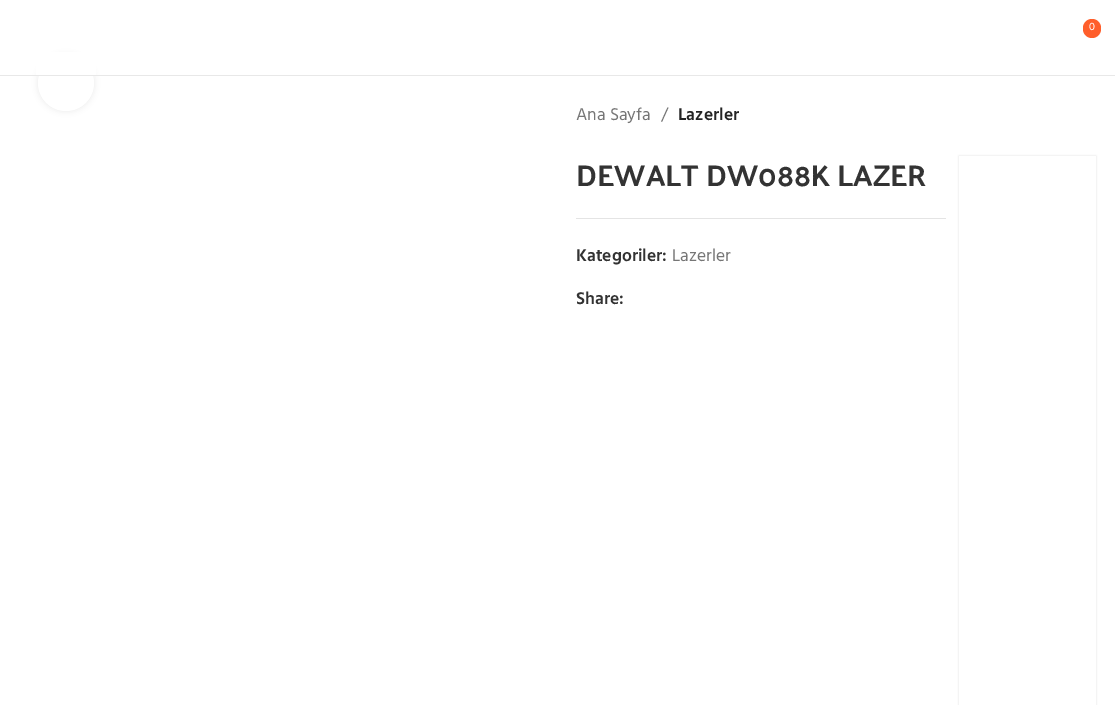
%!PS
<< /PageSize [1115 705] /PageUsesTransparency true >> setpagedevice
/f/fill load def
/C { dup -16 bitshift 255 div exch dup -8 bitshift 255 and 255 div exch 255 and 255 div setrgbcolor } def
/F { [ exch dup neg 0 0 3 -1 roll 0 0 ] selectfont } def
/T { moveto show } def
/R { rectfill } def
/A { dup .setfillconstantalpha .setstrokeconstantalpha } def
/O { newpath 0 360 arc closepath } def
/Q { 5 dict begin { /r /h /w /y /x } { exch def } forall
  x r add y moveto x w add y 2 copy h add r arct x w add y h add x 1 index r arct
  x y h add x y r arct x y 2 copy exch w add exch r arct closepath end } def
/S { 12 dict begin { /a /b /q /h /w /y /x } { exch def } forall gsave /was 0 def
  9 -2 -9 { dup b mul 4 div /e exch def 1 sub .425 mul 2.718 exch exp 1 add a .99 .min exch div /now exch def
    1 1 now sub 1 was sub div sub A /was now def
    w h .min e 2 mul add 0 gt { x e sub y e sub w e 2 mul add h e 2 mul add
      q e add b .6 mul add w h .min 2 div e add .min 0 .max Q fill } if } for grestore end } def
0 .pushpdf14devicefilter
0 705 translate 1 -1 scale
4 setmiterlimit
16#FFFFFF C
0 0 1115 705 R
16#000000 C
38 55 56 56 28 3 .08 S
16#FFFFFF C
66 83 28 O f
36 52 60 23 R
16#E8E8E8 C
0 75 1115 1 R
16#FF5E2B C
1083 19 18 19 9 Q f
/Hind-Regular 11 F
16#FFFFFF C
(0) 1089 30 T
/Hind-Regular 17.5 F
16#767676 C
(Ana Sayfa) 576 120 T
(/) 661 120 T
/Hind-SemiBold 17.5 F
16#242424 C
(Lazerler) 678 120 T
/PalanquinDark-Regular 30 F
16#333333 C
(DEWALT DW088K LAZER) 576 186 T
16#000000 C
959 156 137 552 0 1 .12 S
16#FFFFFF C
959 156 137 549 R
16#E4E4E4 C
576 218 370 1 R
/Hind-SemiBold 17.5 F
16#333333 C
(Kategoriler:) 576 261 T
/Hind-Regular 17.5 F
16#767676 C
(Lazerler) 672 261 T
/Hind-SemiBold 17.5 F
16#333333 C
(Share:) 576 304 T
.poppdf14devicefilter showpage
